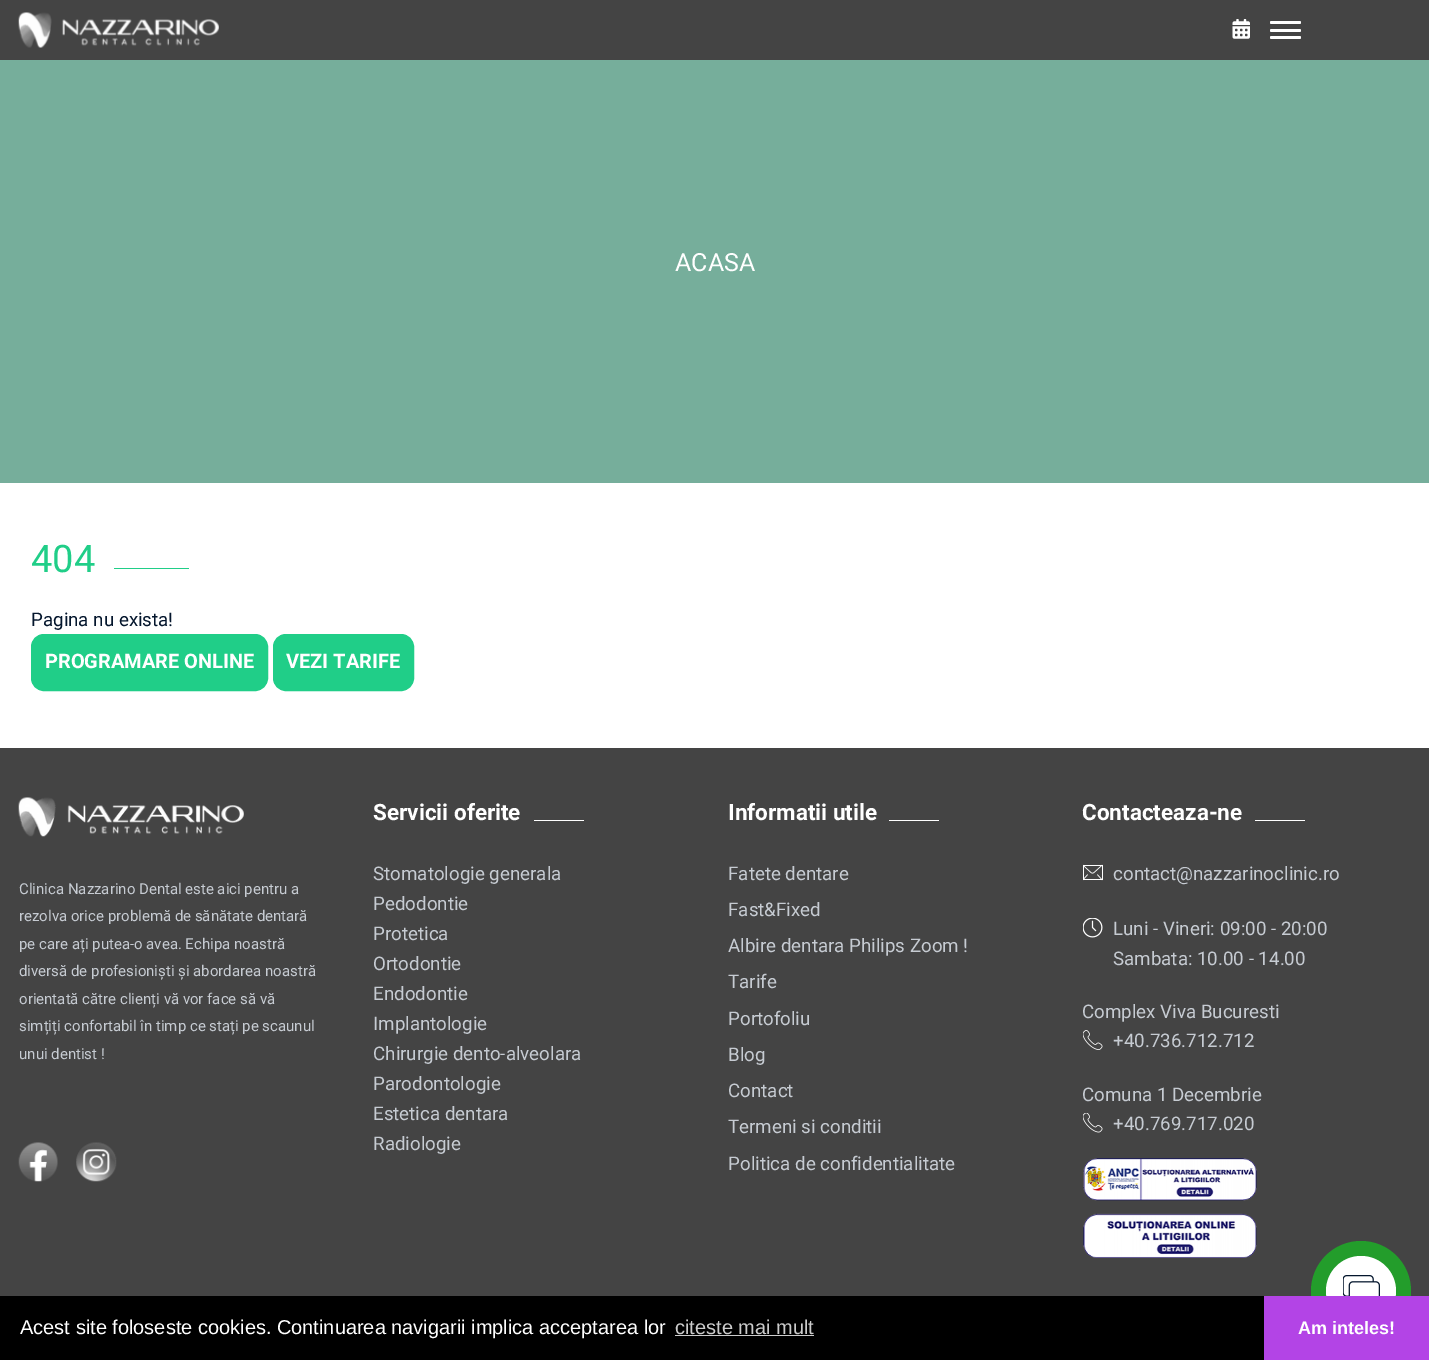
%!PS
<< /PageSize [1429 1360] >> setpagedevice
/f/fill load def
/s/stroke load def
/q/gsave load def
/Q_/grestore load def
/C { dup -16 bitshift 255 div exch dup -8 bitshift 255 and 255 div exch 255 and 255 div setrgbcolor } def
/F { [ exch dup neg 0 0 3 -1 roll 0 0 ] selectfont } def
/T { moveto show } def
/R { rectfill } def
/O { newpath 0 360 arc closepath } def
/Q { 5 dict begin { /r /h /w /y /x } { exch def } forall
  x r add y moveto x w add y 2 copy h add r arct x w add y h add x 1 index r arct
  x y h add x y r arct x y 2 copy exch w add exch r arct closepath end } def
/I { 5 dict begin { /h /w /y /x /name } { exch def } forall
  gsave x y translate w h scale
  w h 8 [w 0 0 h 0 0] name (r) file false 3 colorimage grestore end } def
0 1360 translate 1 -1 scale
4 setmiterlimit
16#FFFFFF C
0 0 1429 1360 R
16#444444 C
0 0 1429 60 R
(1.rgb) 18 12 201 36 I
(2.rgb) 1232 19 18 20 I
16#FFFFFF C
1270 21 31 3 1.5 Q f
1270 29 31 3 1.5 Q f
1270 36 31 3 1.5 Q f
16#76AE9B C
0 60 1429 423 R
/Roboto-Regular 25 F
16#FFFFFF C
(ACASA) 675 271 T
/Roboto-Regular 38 F
16#20CE88 C
(404) 31 572 T
114 568 75 1 R
/Roboto-Regular 18.75 F
16#04162D C
(Pagina nu exista!) 31 626 T
16#20CE88 C
31.5 634.5 236 56 12.5 Q q f Q_
s
/Roboto-Bold 20 F
16#FFFFFF C
(PROGRAMARE ONLINE) 45 668 T
16#20CE88 C
273.5 634.5 140 56 12.5 Q q f Q_
s
16#FFFFFF C
(VEZI TARIFE) 286 668 T
16#444444 C
0 748 1429 548 R
(3.rgb) 18 797 226 40 I
/Roboto-Regular 15 F
16#C6CBD2 C
(Clinica Nazzarino Dental este aici pentru a) 19 894 T
(rezolva orice problemă de sănătate dentară) 19 921 T
(pe care ați putea-o avea. Echipa noastră) 19 949 T
(diversă de profesioniști și abordarea noastră) 19 976 T
(orientată către clienți vă vor face să vă) 19 1004 T
(simțiți confortabil în timp ce stați pe scaunul) 19 1031 T
(unui dentist !) 19 1059 T
(4.rgb) 18 1142 40 40 I
(5.rgb) 76 1142 41 40 I
/Roboto-Bold 22.5 F
16#FFFFFF C
(Servicii oferite) 373 820 T
534 820 50 1 R
/Roboto-Regular 18.75 F
16#C6CBD2 C
(Stomatologie generala) 373 880 T
(Pedodontie) 373 910 T
(Protetica) 373 940 T
(Ortodontie) 373 970 T
(Endodontie) 373 1000 T
(Implantologie) 373 1030 T
(Chirurgie dento-alveolara) 373 1060 T
(Parodontologie) 373 1090 T
(Estetica dentara) 373 1120 T
(Radiologie) 373 1150 T
/Roboto-Bold 22.5 F
16#FFFFFF C
(Informatii utile) 728 820 T
889 820 50 1 R
/Roboto-Regular 18.75 F
16#C6CBD2 C
(Fatete dentare) 728 880 T
(Fast&Fixed) 728 916 T
(Albire dentara Philips Zoom !) 728 952 T
(Tarife) 728 988 T
(Portofoliu) 728 1025 T
(Blog) 728 1061 T
(Contact) 728 1097 T
(Termeni si conditii) 728 1133 T
(Politica de confidentialitate) 728 1170 T
/Roboto-Bold 22.5 F
16#FFFFFF C
(Contacteaza-ne) 1082 820 T
1255 820 50 1 R
(6.rgb) 1083 864 20 17 I
/Roboto-Regular 18.75 F
16#C6CBD2 C
(contact@nazzarinoclinic.ro) 1113 880 T
(7.rgb) 1083 918 20 20 I
(Luni - Vineri: 09:00 - 20:00) 1113 935 T
(Sambata: 10.00 - 14.00) 1113 965 T
(Complex Viva Bucuresti) 1082 1018 T
(8.rgb) 1083 1030 20 20 I
(+40.736.712.712) 1113 1047 T
(Comuna 1 Decembrie) 1082 1101 T
(9.rgb) 1083 1113 20 20 I
(+40.769.717.020) 1113 1130 T
(10.rgb) 1083 1158 174 43 I
(11.rgb) 1083 1213 174 45 I
16#239D2B C
1361 1291 50 O f
16#FFFFFF C
1361 1291 35 O f
(12.rgb) 1343 1275 37 21 I
16#000000 C
0 1296 1264 64 R
/LiberationSans-Regular 20 F
16#FFFFFF C
(Acest site foloseste cookies. Continuarea navigarii implica acceptarea lor) 20 1334 T
16#CCCCCC C
(citeste mai mult) 675 1334 T
675 1335 139 1 R
16#B344E6 C
1264 1296 165 64 R
/LiberationSans-Bold 18 F
16#FFFFFF C
(Am inteles!) 1298 1334 T
showpage
